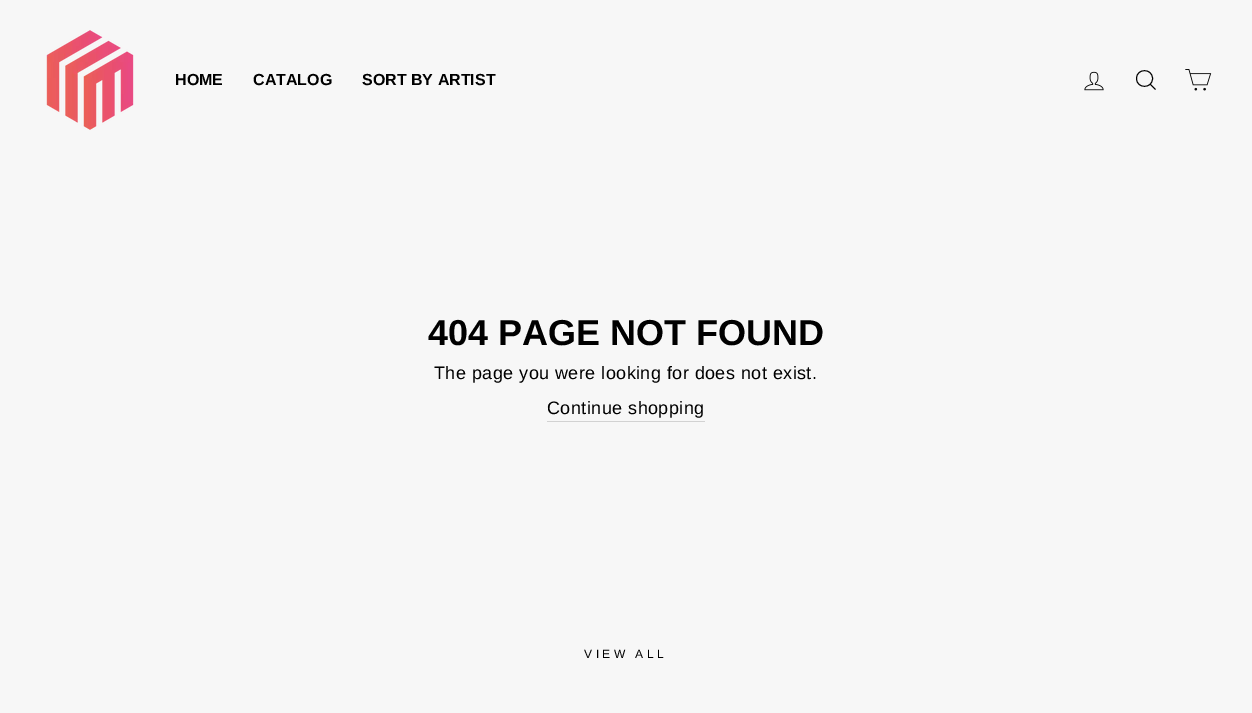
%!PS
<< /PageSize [1252 713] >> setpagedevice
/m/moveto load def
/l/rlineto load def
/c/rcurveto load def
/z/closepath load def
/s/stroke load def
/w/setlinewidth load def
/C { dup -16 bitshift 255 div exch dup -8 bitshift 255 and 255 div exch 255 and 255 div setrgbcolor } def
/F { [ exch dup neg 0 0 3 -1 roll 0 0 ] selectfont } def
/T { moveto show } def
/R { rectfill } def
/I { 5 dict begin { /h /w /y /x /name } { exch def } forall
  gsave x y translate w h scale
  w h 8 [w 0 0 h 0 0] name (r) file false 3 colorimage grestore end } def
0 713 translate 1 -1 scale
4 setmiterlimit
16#F7F7F7 C
0 0 1252 713 R
(1.rgb) 46 30 88 100 I
/LiberationSans-Bold 16 F
16#000000 C
(HOME) 175 85 T
(CATALOG) 253 85 T
(SORT BY ARTIST) 362 85 T
(2.rgb) 1084 71 20 20 I
.9 w
1152.5 78.5 m 0 10.5 -16 10.5 -16 0 c 0 -10.5 16 -10.5 16 0 c z 1155.5 89.5 m -5 -5 l s
(3.rgb) 1185 69 27 22 I
/LiberationSans-Bold 36 F
(404 PAGE NOT FOUND) 428 345 T
/LiberationSans-Regular 18 F
434 379 m .45 0 (The page you were looking for does not exist.) ashow
16#D2D2D2 C
547 421 158 1 R
16#000000 C
547 414 m .45 0 (Continue shopping) ashow
/LiberationSans-Regular 12 F
584 658 m 3.5 0 (VIEW ALL) ashow
showpage
